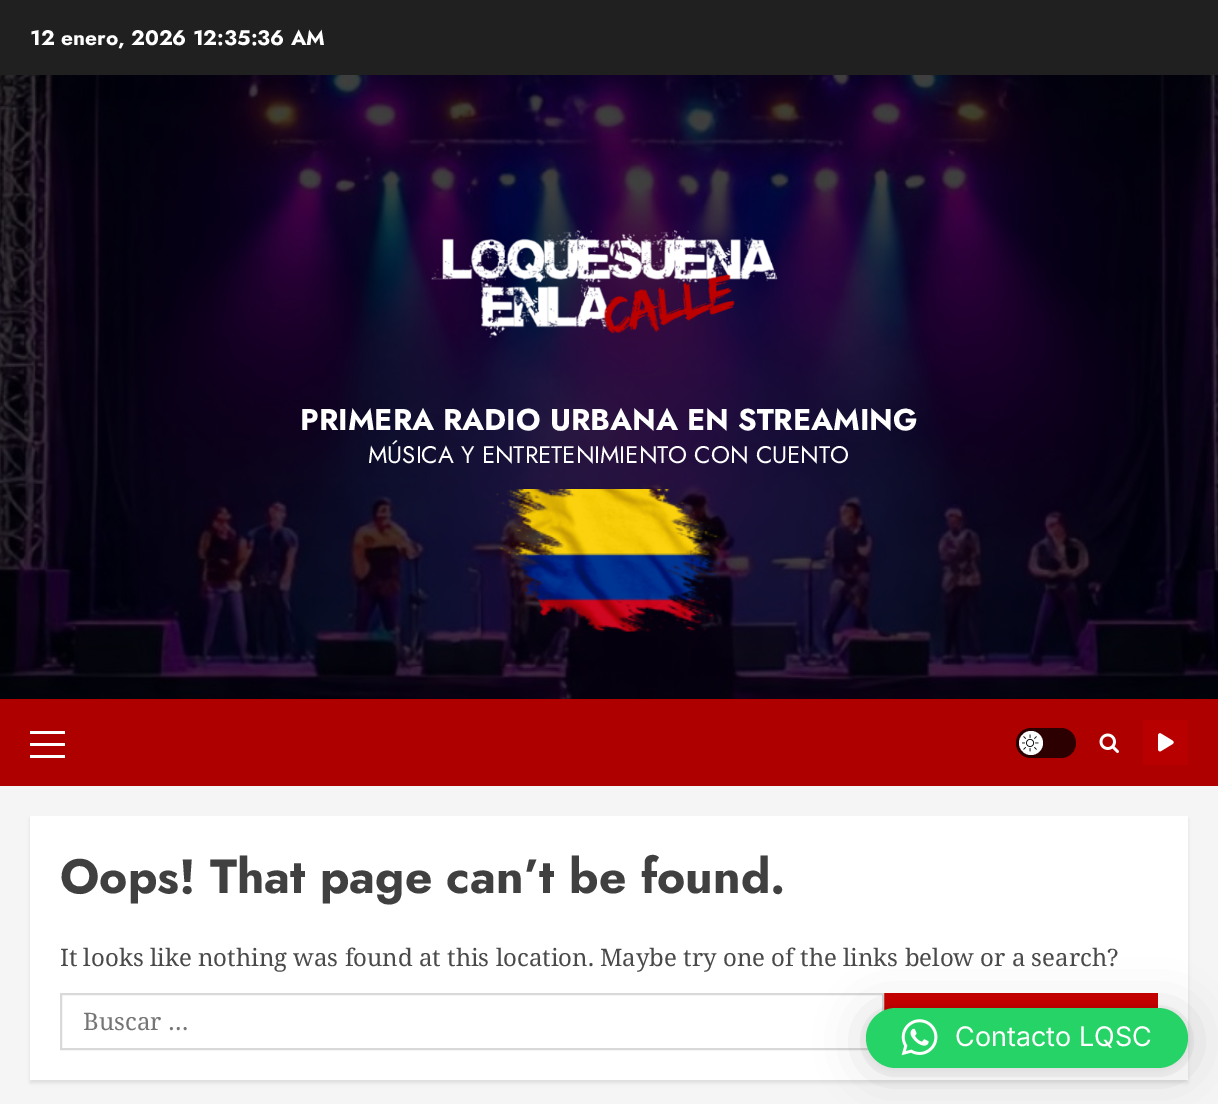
%!PS
<< /PageSize [1218 1104] /PageUsesTransparency true >> setpagedevice
/f/fill load def
/w/setlinewidth load def
/C { dup -16 bitshift 255 div exch dup -8 bitshift 255 and 255 div exch 255 and 255 div setrgbcolor } def
/F { [ exch dup neg 0 0 3 -1 roll 0 0 ] selectfont } def
/T { moveto show } def
/R { rectfill } def
/A { dup .setfillconstantalpha .setstrokeconstantalpha } def
/O { newpath 0 360 arc closepath } def
/Q { 5 dict begin { /r /h /w /y /x } { exch def } forall
  x r add y moveto x w add y 2 copy h add r arct x w add y h add x 1 index r arct
  x y h add x y r arct x y 2 copy exch w add exch r arct closepath end } def
/S { 12 dict begin { /a /b /q /h /w /y /x } { exch def } forall gsave /was 0 def
  9 -2 -9 { dup b mul 4 div /e exch def 1 sub .425 mul 2.718 exch exp 1 add a .99 .min exch div /now exch def
    1 1 now sub 1 was sub div sub A /was now def
    w h .min e 2 mul add 0 gt { x e sub y e sub w e 2 mul add h e 2 mul add
      q e add b .6 mul add w h .min 2 div e add .min 0 .max Q fill } if } for grestore end } def
/I { 5 dict begin { /h /w /y /x /name } { exch def } forall
  gsave x y translate w h scale
  w h 8 [w 0 0 h 0 0] name (r) file false 3 colorimage grestore end } def
0 .pushpdf14devicefilter
0 1104 translate 1 -1 scale
4 setmiterlimit
16#F5F5F5 C
0 0 1218 1104 R
16#202020 C
0 0 1218 75 R
/Jost-Bold 21 F
16#FFFFFF C
(12 enero, 2026 12:35:36 AM) 30 45 T
(1.rgb) 0 75 1218 624 I
(2.rgb) 431 230 347 108 I
/Jost-Bold 30 F
(PRIMERA RADIO URBANA EN STREAMING) 300 430 T
/Jost-Regular 24 F
(MÚSICA Y ENTRETENIMIENTO CON CUENTO) 368 463 T
(3.rgb) 489 489 234 143 I
16#AF0000 C
0 699 1218 87 R
16#FFFFFF C
30 743 35 3 R
30 731 35 3 R
30 755 35 3 R
16#2C0000 C
1016 728 60 30 15 Q f
16#FFFFFF C
1031 743 12 O f
(4.rgb) 1022 734 17 18 I
(5.rgb) 1099 733 20 20 I
16#B80000 C
1143 720 45 45 R
(6.rgb) 1158 733 16 19 I
16#000000 C
30 819 1158 264 0 1.5 .08 S
16#FFFFFF C
30 816 1158 264 R
/Jost-Bold 48 F
16#404040 C
(Oops! That page can’t be found.) 60 893 T
/NotoSerif-Regular 24 F
16#4A4A4A C
(It looks like nothing was found at this location. Maybe try one of the links below or a search?) 60 966 T
16#CC0000 C
884 993 274 18 R
16#D9D9D9 C
2 w
61 994 822 55 rectstroke
16#757575 C
(Buscar …) 83 1030 T
16#000000 C
866 1011 322 60 30 24 .16 S
866 1010 322 60 30 4.5 .06 S
16#25D366 C
866 1008 322 60 30 Q f
(7.rgb) 901 1019 37 37 I
/Inter-Regular 27 F
16#FFFFFF C
(Contacto LQSC) 955 1046 T
.poppdf14devicefilter showpage
